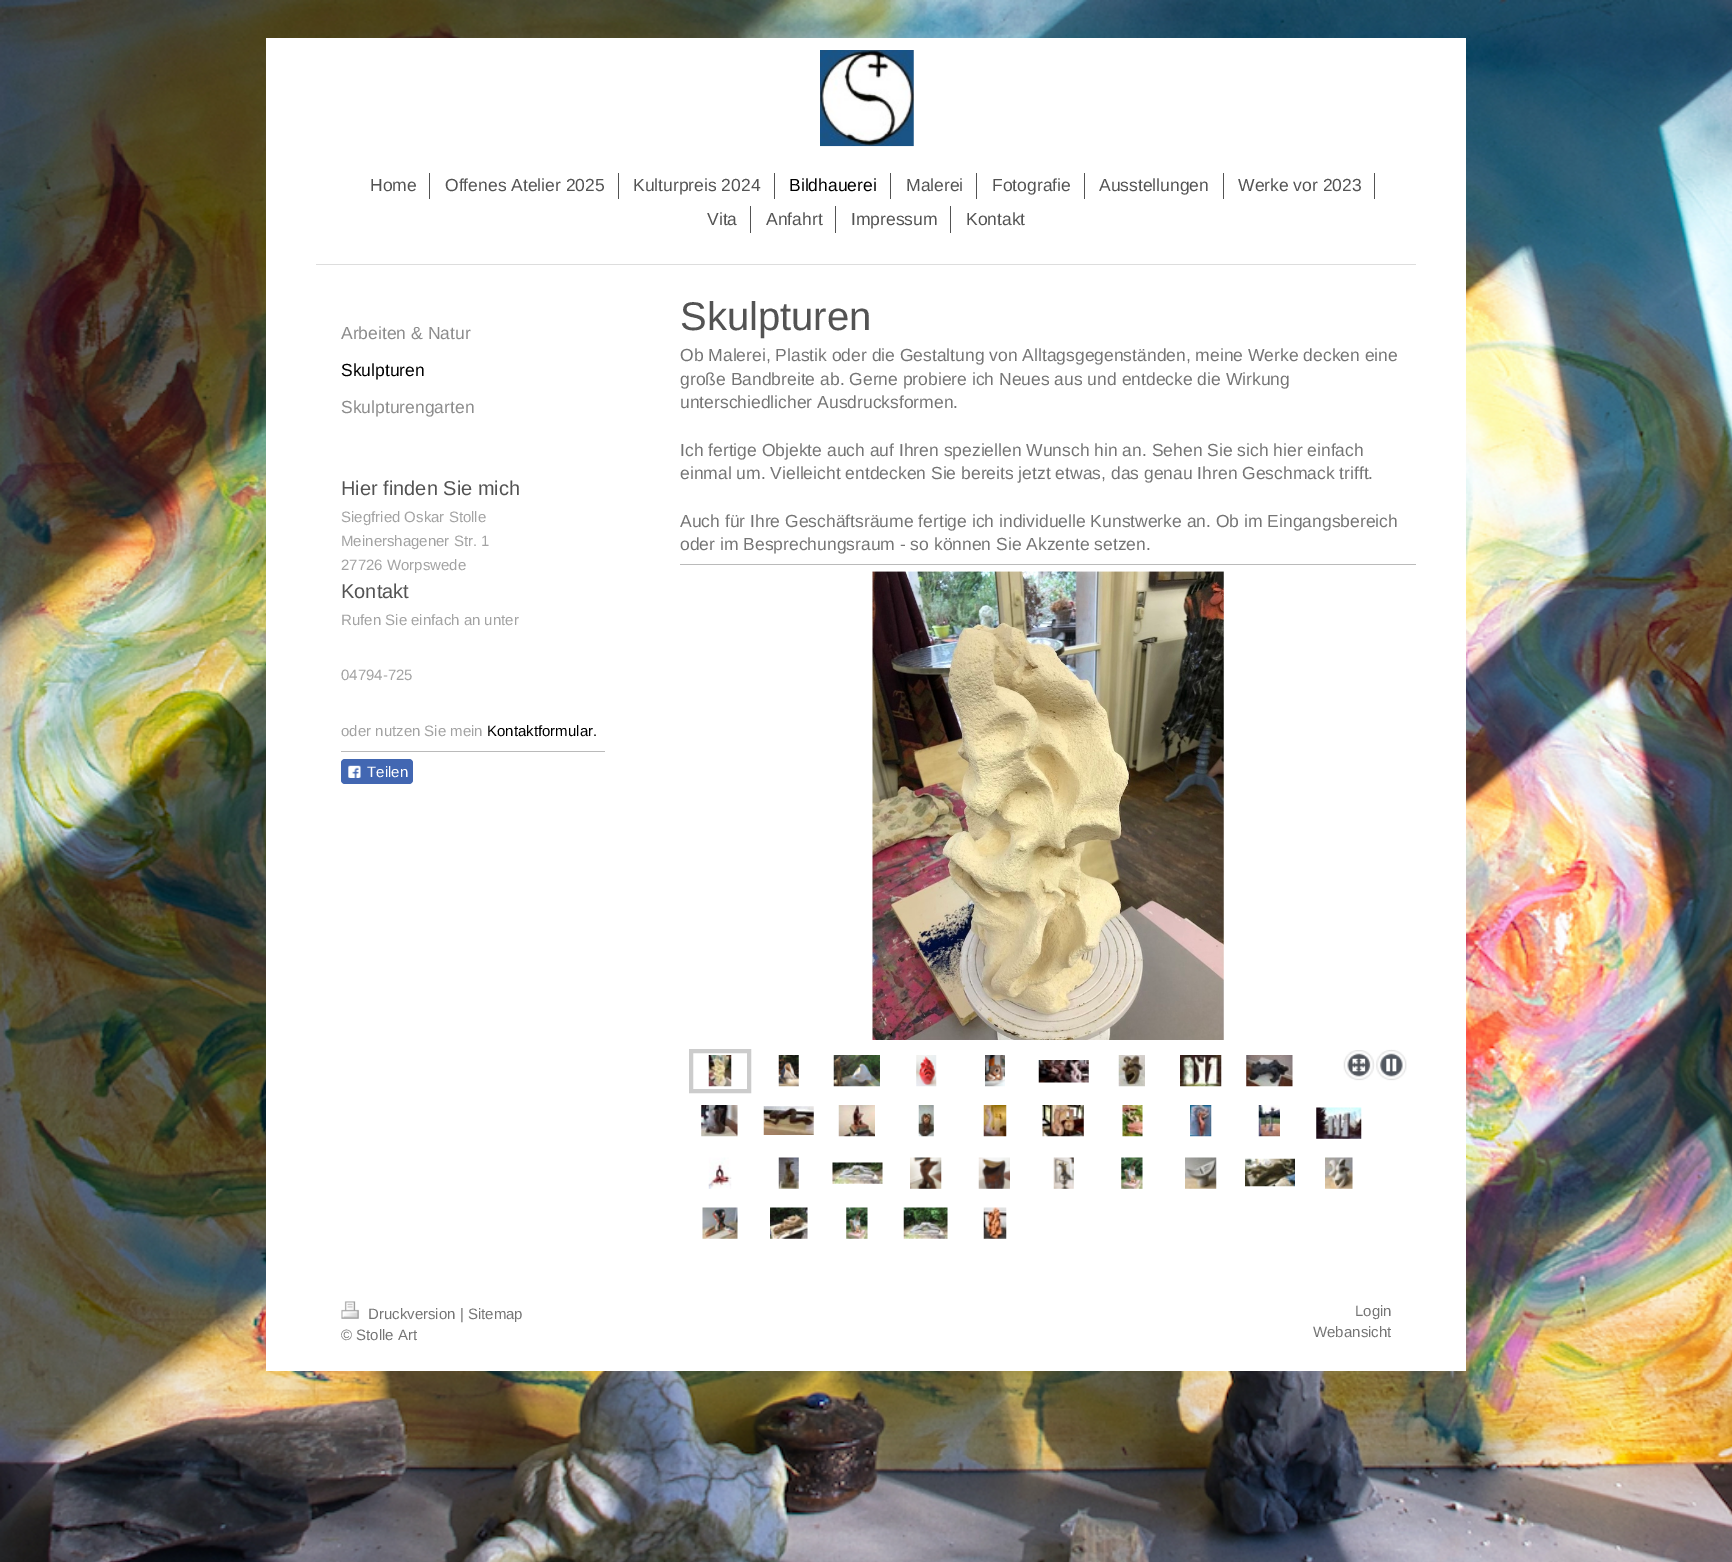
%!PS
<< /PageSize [1732 1562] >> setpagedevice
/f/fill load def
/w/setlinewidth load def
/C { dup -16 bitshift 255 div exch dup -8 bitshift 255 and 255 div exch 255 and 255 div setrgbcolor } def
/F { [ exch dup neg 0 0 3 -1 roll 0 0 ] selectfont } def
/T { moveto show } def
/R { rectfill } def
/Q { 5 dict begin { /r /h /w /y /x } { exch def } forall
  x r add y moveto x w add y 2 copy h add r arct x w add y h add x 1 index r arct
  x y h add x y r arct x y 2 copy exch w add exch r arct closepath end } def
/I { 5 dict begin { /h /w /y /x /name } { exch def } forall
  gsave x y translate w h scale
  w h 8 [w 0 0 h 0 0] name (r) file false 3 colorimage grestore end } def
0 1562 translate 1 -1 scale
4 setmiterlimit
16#FFFFFF C
0 0 1732 1562 R
(1.rgb) 0 0 1732 1562 I
266 38 1200 1333 R
(2.rgb) 820 50 94 97 I
16#DDDDDD C
316 264 1100 1 R
16#535353 C
429 173 1 26 R
/LiberationSans-Regular 17.5 F
(Home) 370 191 T
618 173 1 26 R
(Offenes Atelier 2025) 445 191 T
774 173 1 26 R
(Kulturpreis 2024) 633 191 T
890 173 1 26 R
16#000000 C
(Bildhauerei) 789 191 T
16#535353 C
976 173 1 26 R
(Malerei) 906 191 T
1084 173 1 26 R
(Fotografie) 992 191 T
1223 173 1 26 R
(Ausstellungen) 1099 191 T
1374 173 1 26 R
(Werke vor 2023) 1238 191 T
750 206 1 27 R
(Vita) 707 225 T
835 206 1 27 R
(Anfahrt) 766 225 T
950 206 1 27 R
(Impressum) 851 225 T
(Kontakt) 966 225 T
16#8C8C8C C
(Arbeiten & Natur) 341 339 T
16#000000 C
(Skulpturen) 341 376 T
16#8C8C8C C
(Skulpturengarten) 341 413 T
/LiberationSans-Regular 20 F
16#535353 C
(Hier finden Sie mich) 341 495 T
/LiberationSans-Regular 15 F
16#A3A3A3 C
(Siegfried Oskar Stolle) 341 522 T
(Meinershagener Str. 1) 341 546 T
(27726 Worpswede) 341 570 T
/LiberationSans-Regular 20 F
16#535353 C
(Kontakt) 341 598 T
/LiberationSans-Regular 15 F
16#A3A3A3 C
(Rufen Sie einfach an unter) 341 625 T
(04794-725) 341 680 T
(oder nutzen Sie mein) 341 736 T
16#000000 C
(Kontaktformular.) 487 736 T
16#BABABA C
341 751 264 1 R
16#4267B2 C
341 759 72 25 4 Q f
(3.rgb) 348 765 13 13 I
16#FFFFFF C
(Teilen) 367 777 T
/LiberationSans-Regular 40 F
16#535353 C
(Skulpturen) 680 330 T
/LiberationSans-Regular 17.5 F
16#757575 C
(Ob Malerei, Plastik oder die Gestaltung von Alltagsgegenständen, meine Werke decken eine) 680 361 T
(große Bandbreite ab. Gerne probiere ich Neues aus und entdecke die Wirkung) 680 385 T
(unterschiedlicher Ausdrucksformen.) 680 408 T
(Ich fertige Objekte auch auf Ihren speziellen Wunsch hin an. Sehen Sie sich hier einfach) 680 456 T
(einmal um. Vielleicht entdecken Sie bereits jetzt etwas, das genau Ihren Geschmack trifft.) 680 479 T
(Auch für Ihre Geschäftsräume fertige ich individuelle Kunstwerke an. Ob im Eingangsbereich) 680 527 T
(oder im Besprechungsraum - so können Sie Akzente setzen.) 680 550 T
16#BABABA C
680 564 736 1 R
(4.rgb) 872 571 352 469 I
16#CCCCCC C
4 w
691 1051 58 40 rectstroke
(5.rgb) 708 1055 24 32 I
(6.rgb) 778 1055 21 32 I
(7.rgb) 833 1055 47 32 I
(8.rgb) 916 1055 21 32 I
(9.rgb) 985 1055 20 32 I
(10.rgb) 1038 1060 51 23 I
(11.rgb) 1118 1055 27 32 I
(12.rgb) 1180 1055 42 32 I
(13.rgb) 1246 1055 47 32 I
(14.rgb) 1343 1050 32 31 I
(15.rgb) 1376 1049 31 32 I
(16.rgb) 701 1105 37 32 I
(17.rgb) 763 1106 51 29 I
(18.rgb) 838 1105 37 32 I
(19.rgb) 918 1105 16 32 I
(20.rgb) 983 1105 24 32 I
(21.rgb) 1042 1105 42 32 I
(22.rgb) 1122 1105 21 32 I
(23.rgb) 1190 1105 22 32 I
(24.rgb) 1258 1105 22 32 I
(25.rgb) 1316 1107 46 32 I
(26.rgb) 708 1157 24 32 I
(27.rgb) 778 1157 21 32 I
(28.rgb) 832 1162 51 22 I
(29.rgb) 910 1157 32 32 I
(30.rgb) 978 1157 32 32 I
(31.rgb) 1053 1157 21 32 I
(32.rgb) 1121 1157 22 32 I
(33.rgb) 1185 1157 32 32 I
(34.rgb) 1245 1158 50 29 I
(35.rgb) 1325 1157 28 32 I
(36.rgb) 702 1207 36 32 I
(37.rgb) 770 1207 38 32 I
(38.rgb) 846 1207 22 32 I
(39.rgb) 903 1207 45 32 I
(40.rgb) 983 1207 24 32 I
(41.rgb) 341 1301 18 18 I
/LiberationSans-Regular 15 F
16#757575 C
(Druckversion | Sitemap) 368 1319 T
(© Stolle Art) 341 1340 T
(Login) 1355 1316 T
(Webansicht) 1313 1337 T
showpage
